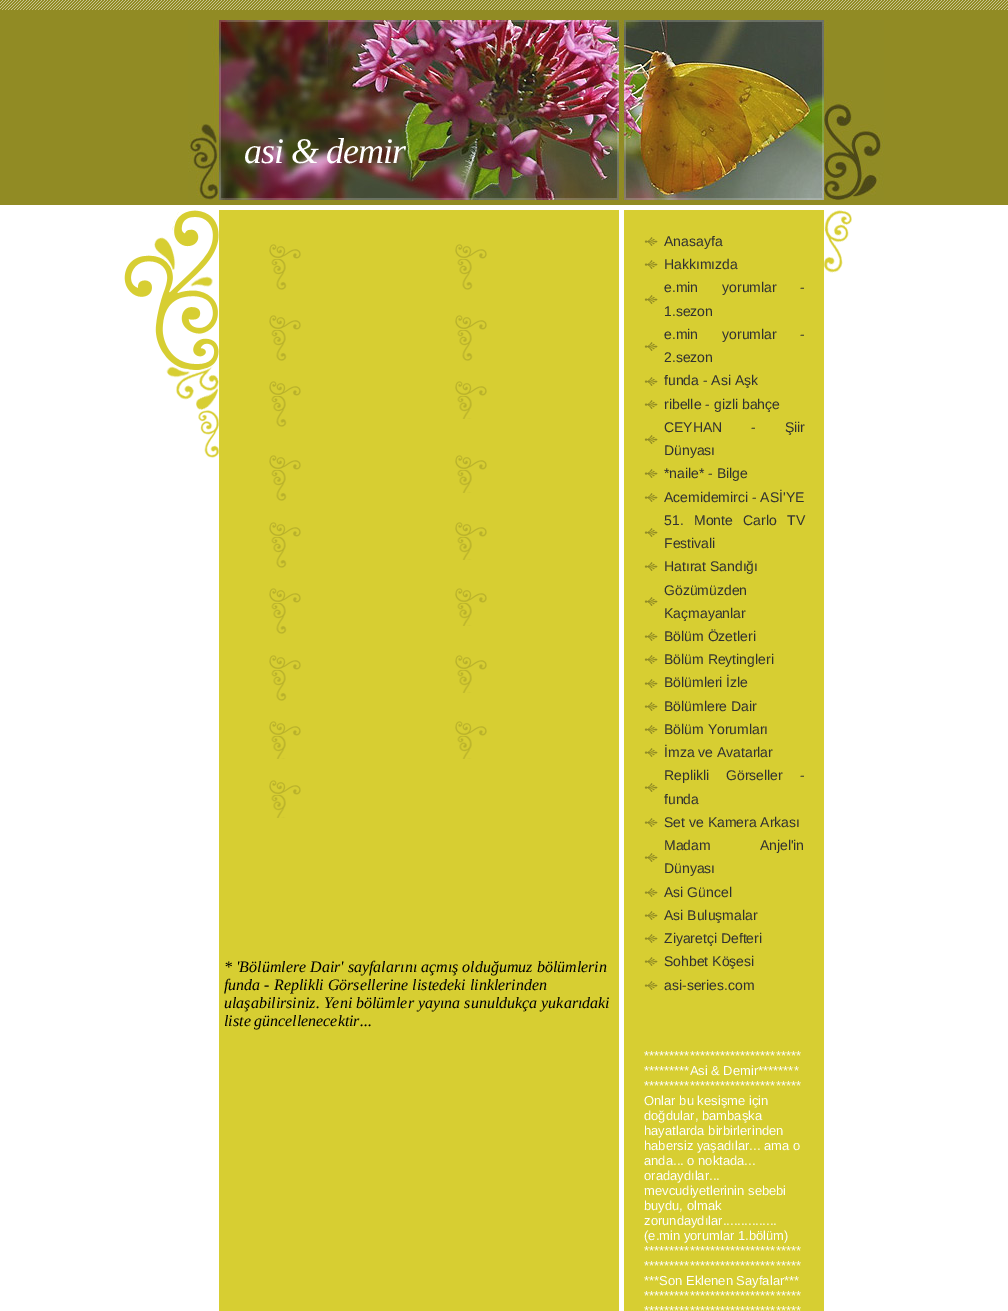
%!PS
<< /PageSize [1008 1311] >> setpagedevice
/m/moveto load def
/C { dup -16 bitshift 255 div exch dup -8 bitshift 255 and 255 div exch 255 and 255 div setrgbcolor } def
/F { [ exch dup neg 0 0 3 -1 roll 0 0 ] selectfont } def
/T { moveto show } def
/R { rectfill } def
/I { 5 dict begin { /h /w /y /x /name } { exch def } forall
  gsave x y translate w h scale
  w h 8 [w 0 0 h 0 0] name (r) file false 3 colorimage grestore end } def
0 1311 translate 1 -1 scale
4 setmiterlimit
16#FFFFFF C
0 0 1008 1311 R
(1.rgb) 0 0 1008 205 I
(2.rgb) 188 20 696 180 I
/LiberationSerif-Italic 36 F
244 163 m -1 0 (asi & demir) ashow
(3.rgb) 219 210 605 1101 I
(4.rgb) 124 210 95 248 I
(5.rgb) 269 244 32 46 I
(5.rgb) 455 244 32 46 I
(5.rgb) 269 315 32 46 I
(5.rgb) 455 315 32 46 I
(5.rgb) 269 381 32 46 I
(6.rgb) 455 381 32 38 I
(5.rgb) 269 455 32 46 I
(6.rgb) 455 455 32 38 I
(5.rgb) 269 522 32 46 I
(6.rgb) 455 522 32 38 I
(5.rgb) 269 588 32 46 I
(6.rgb) 455 588 32 38 I
(5.rgb) 269 655 32 46 I
(6.rgb) 455 655 32 38 I
(6.rgb) 269 721 32 38 I
(6.rgb) 455 721 32 38 I
(6.rgb) 269 780 32 38 I
/LiberationSerif-Italic 16 F
16#000000 C
(* 'Bölümlere Dair' sayfalarını açmış olduğumuz bölümlerin) 224 972 T
(funda - Replikli Görsellerine listedeki linklerinden) 224 990 T
(ulaşabilirsiniz. Yeni bölümler yayına sunuldukça yukarıdaki) 224 1008 T
(liste) 224 1026 T
(güncellenecektir...) 254 1026 T
(7.rgb) 824 210 28 63 I
(8.rgb) 644 237 14 9 I
/LiberationSans-Regular 14 F
16#313131 C
(Anasayfa) 664 246 T
(8.rgb) 644 260 14 9 I
(Hakkımızda) 664 269 T
(8.rgb) 644 295 14 9 I
664 292 m 20 0 32 (e.min yorumlar -) widthshow
(1.sezon) 664 316 T
(8.rgb) 644 342 14 9 I
664 339 m 20 0 32 (e.min yorumlar -) widthshow
(2.sezon) 664 362 T
(8.rgb) 644 377 14 9 I
(funda - Asi Aşk) 664 385 T
(8.rgb) 644 400 14 9 I
(ribelle - gizli bahçe) 664 409 T
(8.rgb) 644 435 14 9 I
664 432 m 25 0 32 (CEYHAN - Şiir) widthshow
(Dünyası) 664 455 T
(8.rgb) 644 469 14 9 I
(*naile* - Bilge) 664 478 T
(8.rgb) 644 493 14 9 I
(Acemidemirci - ASİ'YE) 664 502 T
(8.rgb) 644 528 14 9 I
664 525 m 6.5 0 32 (51. Monte Carlo TV) widthshow
(Festivali) 664 548 T
(8.rgb) 644 562 14 9 I
(Hatırat Sandığı) 664 571 T
(8.rgb) 644 597 14 9 I
(Gözümüzden) 664 595 T
(Kaçmayanlar) 664 618 T
(8.rgb) 644 632 14 9 I
(Bölüm Özetleri) 664 641 T
(8.rgb) 644 655 14 9 I
(Bölüm Reytingleri) 664 664 T
(8.rgb) 644 679 14 9 I
(Bölümleri İzle) 664 687 T
(8.rgb) 644 702 14 9 I
(Bölümlere Dair) 664 711 T
(8.rgb) 644 725 14 9 I
(Bölüm Yorumları) 664 734 T
(8.rgb) 644 748 14 9 I
(İmza ve Avatarlar) 664 757 T
(8.rgb) 644 783 14 9 I
664 780 m 13 0 32 (Replikli Görseller -) widthshow
(funda) 664 804 T
(8.rgb) 644 818 14 9 I
(Set ve Kamera Arkası) 664 827 T
(8.rgb) 644 853 14 9 I
664 850 m 45 0 32 (Madam Anjel'in) widthshow
(Dünyası) 664 873 T
(8.rgb) 644 888 14 9 I
(Asi Güncel) 664 897 T
(8.rgb) 644 911 14 9 I
(Asi Buluşmalar) 664 920 T
(8.rgb) 644 934 14 9 I
(Ziyaretçi Defteri) 664 943 T
(8.rgb) 644 957 14 9 I
(Sohbet Köşesi) 664 966 T
(8.rgb) 644 981 14 9 I
(asi-series.com) 664 990 T
/LiberationSans-Regular 13 F
16#FFFFFF C
(*******************************) 644 1060 T
(*********Asi & Demir********) 644 1075 T
(*******************************) 644 1090 T
(Onlar bu kesişme için) 644 1105 T
(doğdular, bambaşka) 644 1120 T
(hayatlarda birbirlerinden) 644 1135 T
(habersiz yaşadılar... ama o) 644 1150 T
(anda... o noktada...) 644 1165 T
(oradaydılar...) 644 1180 T
(mevcudiyetlerinin sebebi) 644 1195 T
(buydu, olmak) 644 1210 T
(zorundaydılar...............) 644 1225 T
(\(e.min yorumlar 1.bölüm\)) 644 1240 T
(*******************************) 644 1255 T
(*******************************) 644 1270 T
(***Son Eklenen Sayfalar***) 644 1285 T
(*******************************) 644 1300 T
(*******************************) 644 1315 T
showpage
